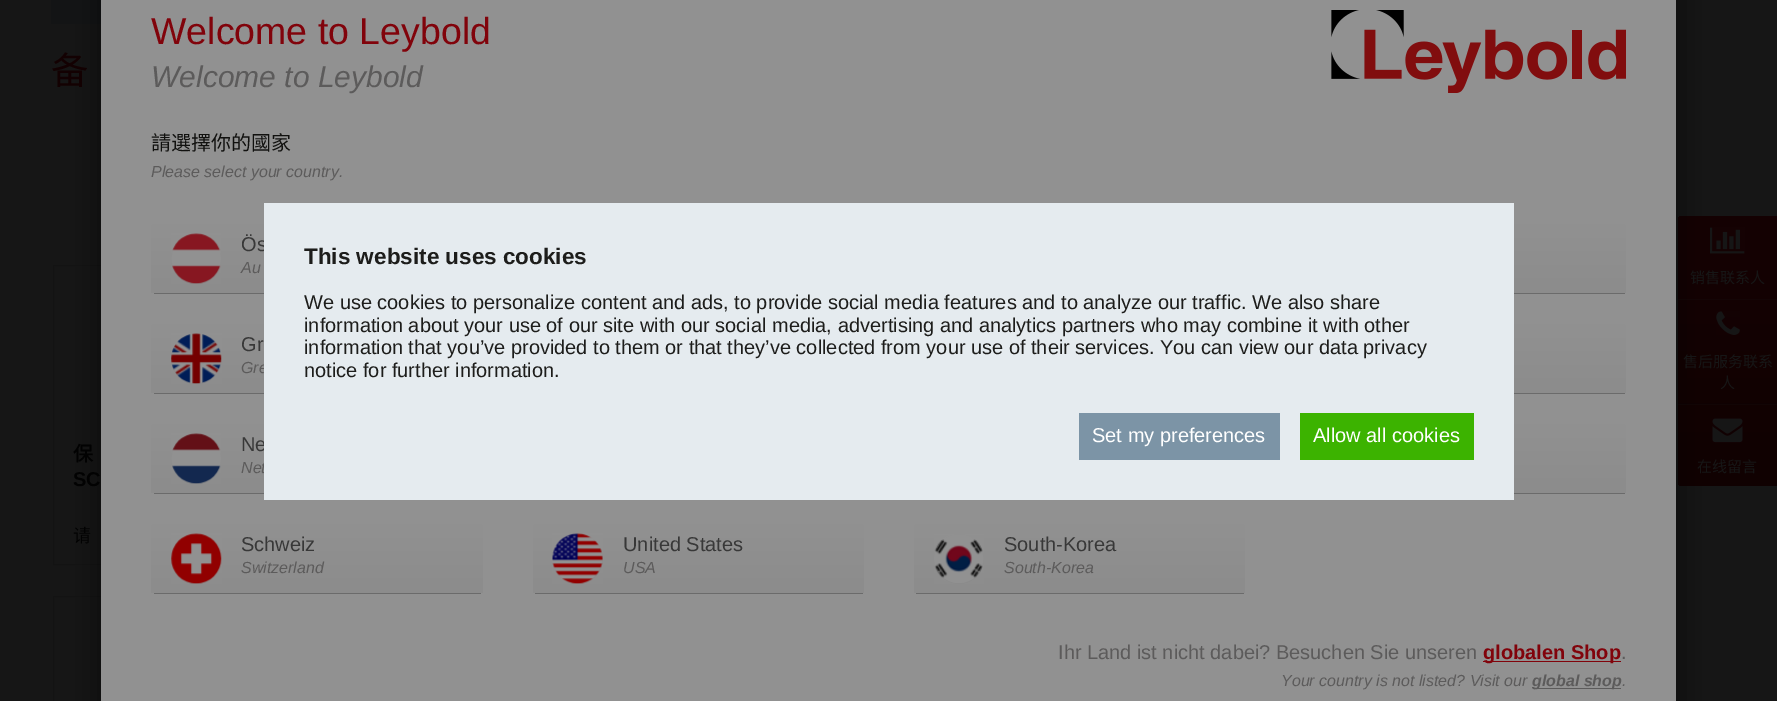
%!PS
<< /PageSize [1777 701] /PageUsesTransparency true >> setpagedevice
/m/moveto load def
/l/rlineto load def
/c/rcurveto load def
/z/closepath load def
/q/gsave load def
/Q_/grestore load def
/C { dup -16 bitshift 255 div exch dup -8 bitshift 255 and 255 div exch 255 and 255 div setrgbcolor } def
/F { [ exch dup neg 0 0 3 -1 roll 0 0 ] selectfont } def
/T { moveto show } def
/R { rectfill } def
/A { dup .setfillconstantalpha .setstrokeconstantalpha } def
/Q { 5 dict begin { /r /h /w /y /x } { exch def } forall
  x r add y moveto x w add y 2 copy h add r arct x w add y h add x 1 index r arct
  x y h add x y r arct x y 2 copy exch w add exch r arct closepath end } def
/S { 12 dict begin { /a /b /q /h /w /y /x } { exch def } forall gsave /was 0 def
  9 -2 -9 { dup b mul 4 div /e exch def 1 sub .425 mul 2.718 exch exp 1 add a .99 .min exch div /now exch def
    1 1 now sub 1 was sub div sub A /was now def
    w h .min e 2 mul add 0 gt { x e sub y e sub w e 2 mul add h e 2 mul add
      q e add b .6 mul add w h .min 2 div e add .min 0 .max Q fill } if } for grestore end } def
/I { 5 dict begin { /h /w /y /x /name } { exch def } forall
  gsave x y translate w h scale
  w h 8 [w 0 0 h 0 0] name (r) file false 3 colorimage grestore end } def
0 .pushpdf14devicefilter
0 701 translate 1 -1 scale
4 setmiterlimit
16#161616 C
0 0 1777 701 R
16#131415 C
51 0 50 24 R
/NotoSansCJKSC-Regular 37.5 F
16#130102 C
(备) 51 84 T
16#131313 C
53.5 265.5 367 299 rectstroke
/NotoSansCJKSC-Bold 20 F
16#020202 C
73 461 m 1 0 32 (保) widthshow
/LiberationSans-Bold 20 F
(SC) 73 486 T
/NotoSansCJKSC-Regular 18 F
(请) 73 542 T
16#131313 C
53.5 596.5 367 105 rectstroke
q 1683 216 m 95 0 l 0 270 l -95 0 l -3 0 -5 -2 -5 -5 c 0 -260 l 0 -3 2 -5 5 -5 c z clip newpath
<< /ShadingType 2 /ColorSpace /DeviceRGB /Coords [1728 216 1728 486] /Extend [true true] /Function << /FunctionType 2 /Domain [0 1] /C0 [.082 .008 .012] /C1 [.063 .004 .004] /N 1 >> >> shfill Q_
(8.rgb) 1710 227 35 27 I
16#140506 C
1678 299 99 1 R
16#0F0102 C
1678 403 99 1 R
(9.rgb) 1716 311 24 24 I
16#120505 C
1678 404 99 1 R
(10.rgb) 1712 418 31 25 I
16#000000 C
101 -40 1575 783 0 15 .56 S
16#919191 C
101 0 1575 701 R
(1.rgb) 1331 10 295 83 I
/LiberationSans-Regular 37.5 F
16#81030B C
(Welcome to Leybold) 151 44 T
/LiberationSans-Italic 30 F
16#5C5B5B C
(Welcome to Leybold) 151 87 T
/NotoSansCJKSC-Regular 20 F
16#11110F C
(請選擇你的國家) 151 150 T
/LiberationSans-Italic 16 F
16#5C5B5B C
(Please select your country.) 151 177 T
q
151 224 332 70 4 Q clip newpath
q 155 224 m 324 0 l 2 0 4 2 4 4 c 0 65 l -332 0 l 0 -65 l 0 -2 2 -4 4 -4 c z clip newpath
<< /ShadingType 2 /ColorSpace /DeviceRGB /Coords [317 224 317 292] /Extend [true true] /Function << /FunctionType 2 /Domain [0 1] /C0 [.569 .569 .569] /C1 [.549 .549 .549] /N 1 >> >> shfill Q_
Q_
16#6B6B6B C
154 293 110 1 R
0.04 A
16#000000 C
171 234 50 50 R
1 A
(2.rgb) 171 233 50 51 I
/LiberationSans-Regular 20 F
16#383838 C
(Ös) 241 251 T
/LiberationSans-Italic 16 F
16#5C5B5B C
(Au) 241 273 T
q
1295 224 331 70 4 Q clip newpath
q 1299 224 m 323 0 l 2 0 4 2 4 4 c 0 65 l -331 0 l 0 -65 l 0 -2 2 -4 4 -4 c z clip newpath
<< /ShadingType 2 /ColorSpace /DeviceRGB /Coords [1461 224 1461 292] /Extend [true true] /Function << /FunctionType 2 /Domain [0 1] /C0 [.569 .569 .569] /C1 [.549 .549 .549] /N 1 >> >> shfill Q_
Q_
16#6B6B6B C
1514 293 111 1 R
q
151 324 332 70 4 Q clip newpath
q 155 324 m 324 0 l 2 0 4 2 4 4 c 0 65 l -332 0 l 0 -65 l 0 -2 2 -4 4 -4 c z clip newpath
<< /ShadingType 2 /ColorSpace /DeviceRGB /Coords [317 324 317 392] /Extend [true true] /Function << /FunctionType 2 /Domain [0 1] /C0 [.569 .569 .569] /C1 [.549 .549 .549] /N 1 >> >> shfill Q_
Q_
154 393 110 1 R
0.04 A
16#000000 C
171 334 50 50 R
1 A
(3.rgb) 171 333 51 51 I
/LiberationSans-Regular 20 F
16#383838 C
(Gr) 241 351 T
/LiberationSans-Italic 16 F
16#5C5B5B C
(Gre) 241 373 T
q
1295 324 331 70 4 Q clip newpath
q 1299 324 m 323 0 l 2 0 4 2 4 4 c 0 65 l -331 0 l 0 -65 l 0 -2 2 -4 4 -4 c z clip newpath
<< /ShadingType 2 /ColorSpace /DeviceRGB /Coords [1461 324 1461 392] /Extend [true true] /Function << /FunctionType 2 /Domain [0 1] /C0 [.569 .569 .569] /C1 [.549 .549 .549] /N 1 >> >> shfill Q_
Q_
16#6B6B6B C
1514 393 111 1 R
q
151 424 332 70 4 Q clip newpath
q 155 424 m 324 0 l 2 0 4 2 4 4 c 0 65 l -332 0 l 0 -65 l 0 -2 2 -4 4 -4 c z clip newpath
<< /ShadingType 2 /ColorSpace /DeviceRGB /Coords [317 424 317 492] /Extend [true true] /Function << /FunctionType 2 /Domain [0 1] /C0 [.569 .569 .569] /C1 [.549 .549 .549] /N 1 >> >> shfill Q_
Q_
154 493 110 1 R
0.04 A
16#000000 C
171 434 50 50 R
1 A
(4.rgb) 171 433 50 51 I
/LiberationSans-Regular 20 F
16#383838 C
(Ne) 241 451 T
/LiberationSans-Italic 16 F
16#5C5B5B C
(Net) 241 473 T
q
1295 424 331 70 4 Q clip newpath
q 1299 424 m 323 0 l 2 0 4 2 4 4 c 0 65 l -331 0 l 0 -65 l 0 -2 2 -4 4 -4 c z clip newpath
<< /ShadingType 2 /ColorSpace /DeviceRGB /Coords [1461 424 1461 492] /Extend [true true] /Function << /FunctionType 2 /Domain [0 1] /C0 [.569 .569 .569] /C1 [.549 .549 .549] /N 1 >> >> shfill Q_
Q_
16#6B6B6B C
1514 493 111 1 R
q
151 524 332 70 4 Q clip newpath
q 155 524 m 324 0 l 2 0 4 2 4 4 c 0 65 l -332 0 l 0 -65 l 0 -2 2 -4 4 -4 c z clip newpath
<< /ShadingType 2 /ColorSpace /DeviceRGB /Coords [317 524 317 592] /Extend [true true] /Function << /FunctionType 2 /Domain [0 1] /C0 [.569 .569 .569] /C1 [.549 .549 .549] /N 1 >> >> shfill Q_
Q_
154 593 327 1 R
0.04 A
16#000000 C
171 534 50 50 R
1 A
(5.rgb) 171 533 51 51 I
/LiberationSans-Regular 20 F
16#383838 C
(Schweiz) 241 551 T
/LiberationSans-Italic 16 F
16#5C5B5B C
(Switzerland) 241 573 T
q
533 524 331 70 4 Q clip newpath
q 537 524 m 323 0 l 2 0 4 2 4 4 c 0 65 l -331 0 l 0 -65 l 0 -2 2 -4 4 -4 c z clip newpath
<< /ShadingType 2 /ColorSpace /DeviceRGB /Coords [698 524 698 592] /Extend [true true] /Function << /FunctionType 2 /Domain [0 1] /C0 [.569 .569 .569] /C1 [.549 .549 .549] /N 1 >> >> shfill Q_
Q_
16#6B6B6B C
535 593 328 1 R
0.04 A
16#000000 C
553 534 50 50 R
1 A
(6.rgb) 552 533 51 51 I
/LiberationSans-Regular 20 F
16#383838 C
(United States) 623 551 T
/LiberationSans-Italic 16 F
16#5C5B5B C
(USA) 623 573 T
q
914 524 331 70 4 Q clip newpath
q 918 524 m 323 0 l 2 0 4 2 4 4 c 0 65 l -331 0 l 0 -65 l 0 -2 2 -4 4 -4 c z clip newpath
<< /ShadingType 2 /ColorSpace /DeviceRGB /Coords [1079 524 1079 592] /Extend [true true] /Function << /FunctionType 2 /Domain [0 1] /C0 [.569 .569 .569] /C1 [.549 .549 .549] /N 1 >> >> shfill Q_
Q_
16#6B6B6B C
916 593 328 1 R
0.04 A
16#000000 C
934 534 50 50 R
1 A
(7.rgb) 934 534 50 50 I
/LiberationSans-Regular 20 F
16#383838 C
(South-Korea) 1004 551 T
/LiberationSans-Italic 16 F
16#5C5B5B C
(South-Korea) 1004 573 T
/LiberationSans-Regular 20 F
(Ihr Land ist nicht dabei? Besuchen Sie unseren) 1058 659 T
16#81030B C
1483 661 138 1 R
/LiberationSans-Bold 20 F
(globalen Shop) 1483 659 T
/LiberationSans-Regular 20 F
16#5C5B5B C
(.) 1621 659 T
/LiberationSans-Italic 16 F
(Your country is not listed? Visit our) 1281 686 T
1533 688 88 1 R
/LiberationSans-BoldItalic 16 F
(global shop) 1532 686 T
/LiberationSans-Italic 16 F
(.) 1622 686 T
16#E5EBEF C
264 203 1250 297 R
/LiberationSans-Bold 22.5 F
16#1D1D1B C
(This website uses cookies) 304 264 T
/LiberationSans-Regular 20 F
(We use cookies to personalize content and ads, to provide social media features and to analyze our traffic. We also share) 304 309 T
(information about your use of our site with our social media, advertising and analytics partners who may combine it with other) 304 332 T
(information that you’ve provided to them or that they’ve collected from your use of their services. You can view our data privacy) 304 354 T
(notice for further information.) 304 377 T
16#7C94A6 C
1079 413 201 47 R
16#FFFFFF C
(Set my preferences) 1092 442 T
16#3CB300 C
1300 413 174 47 R
16#FFFFFF C
(Allow all cookies) 1313 442 T
/NotoSansCJKSC-Regular 15 F
16#161616 C
(销售联系人) 1690 283 T
(售后服务联系) 1683 367 T
(人) 1720 388 T
(在线留言) 1697 472 T
.poppdf14devicefilter showpage
